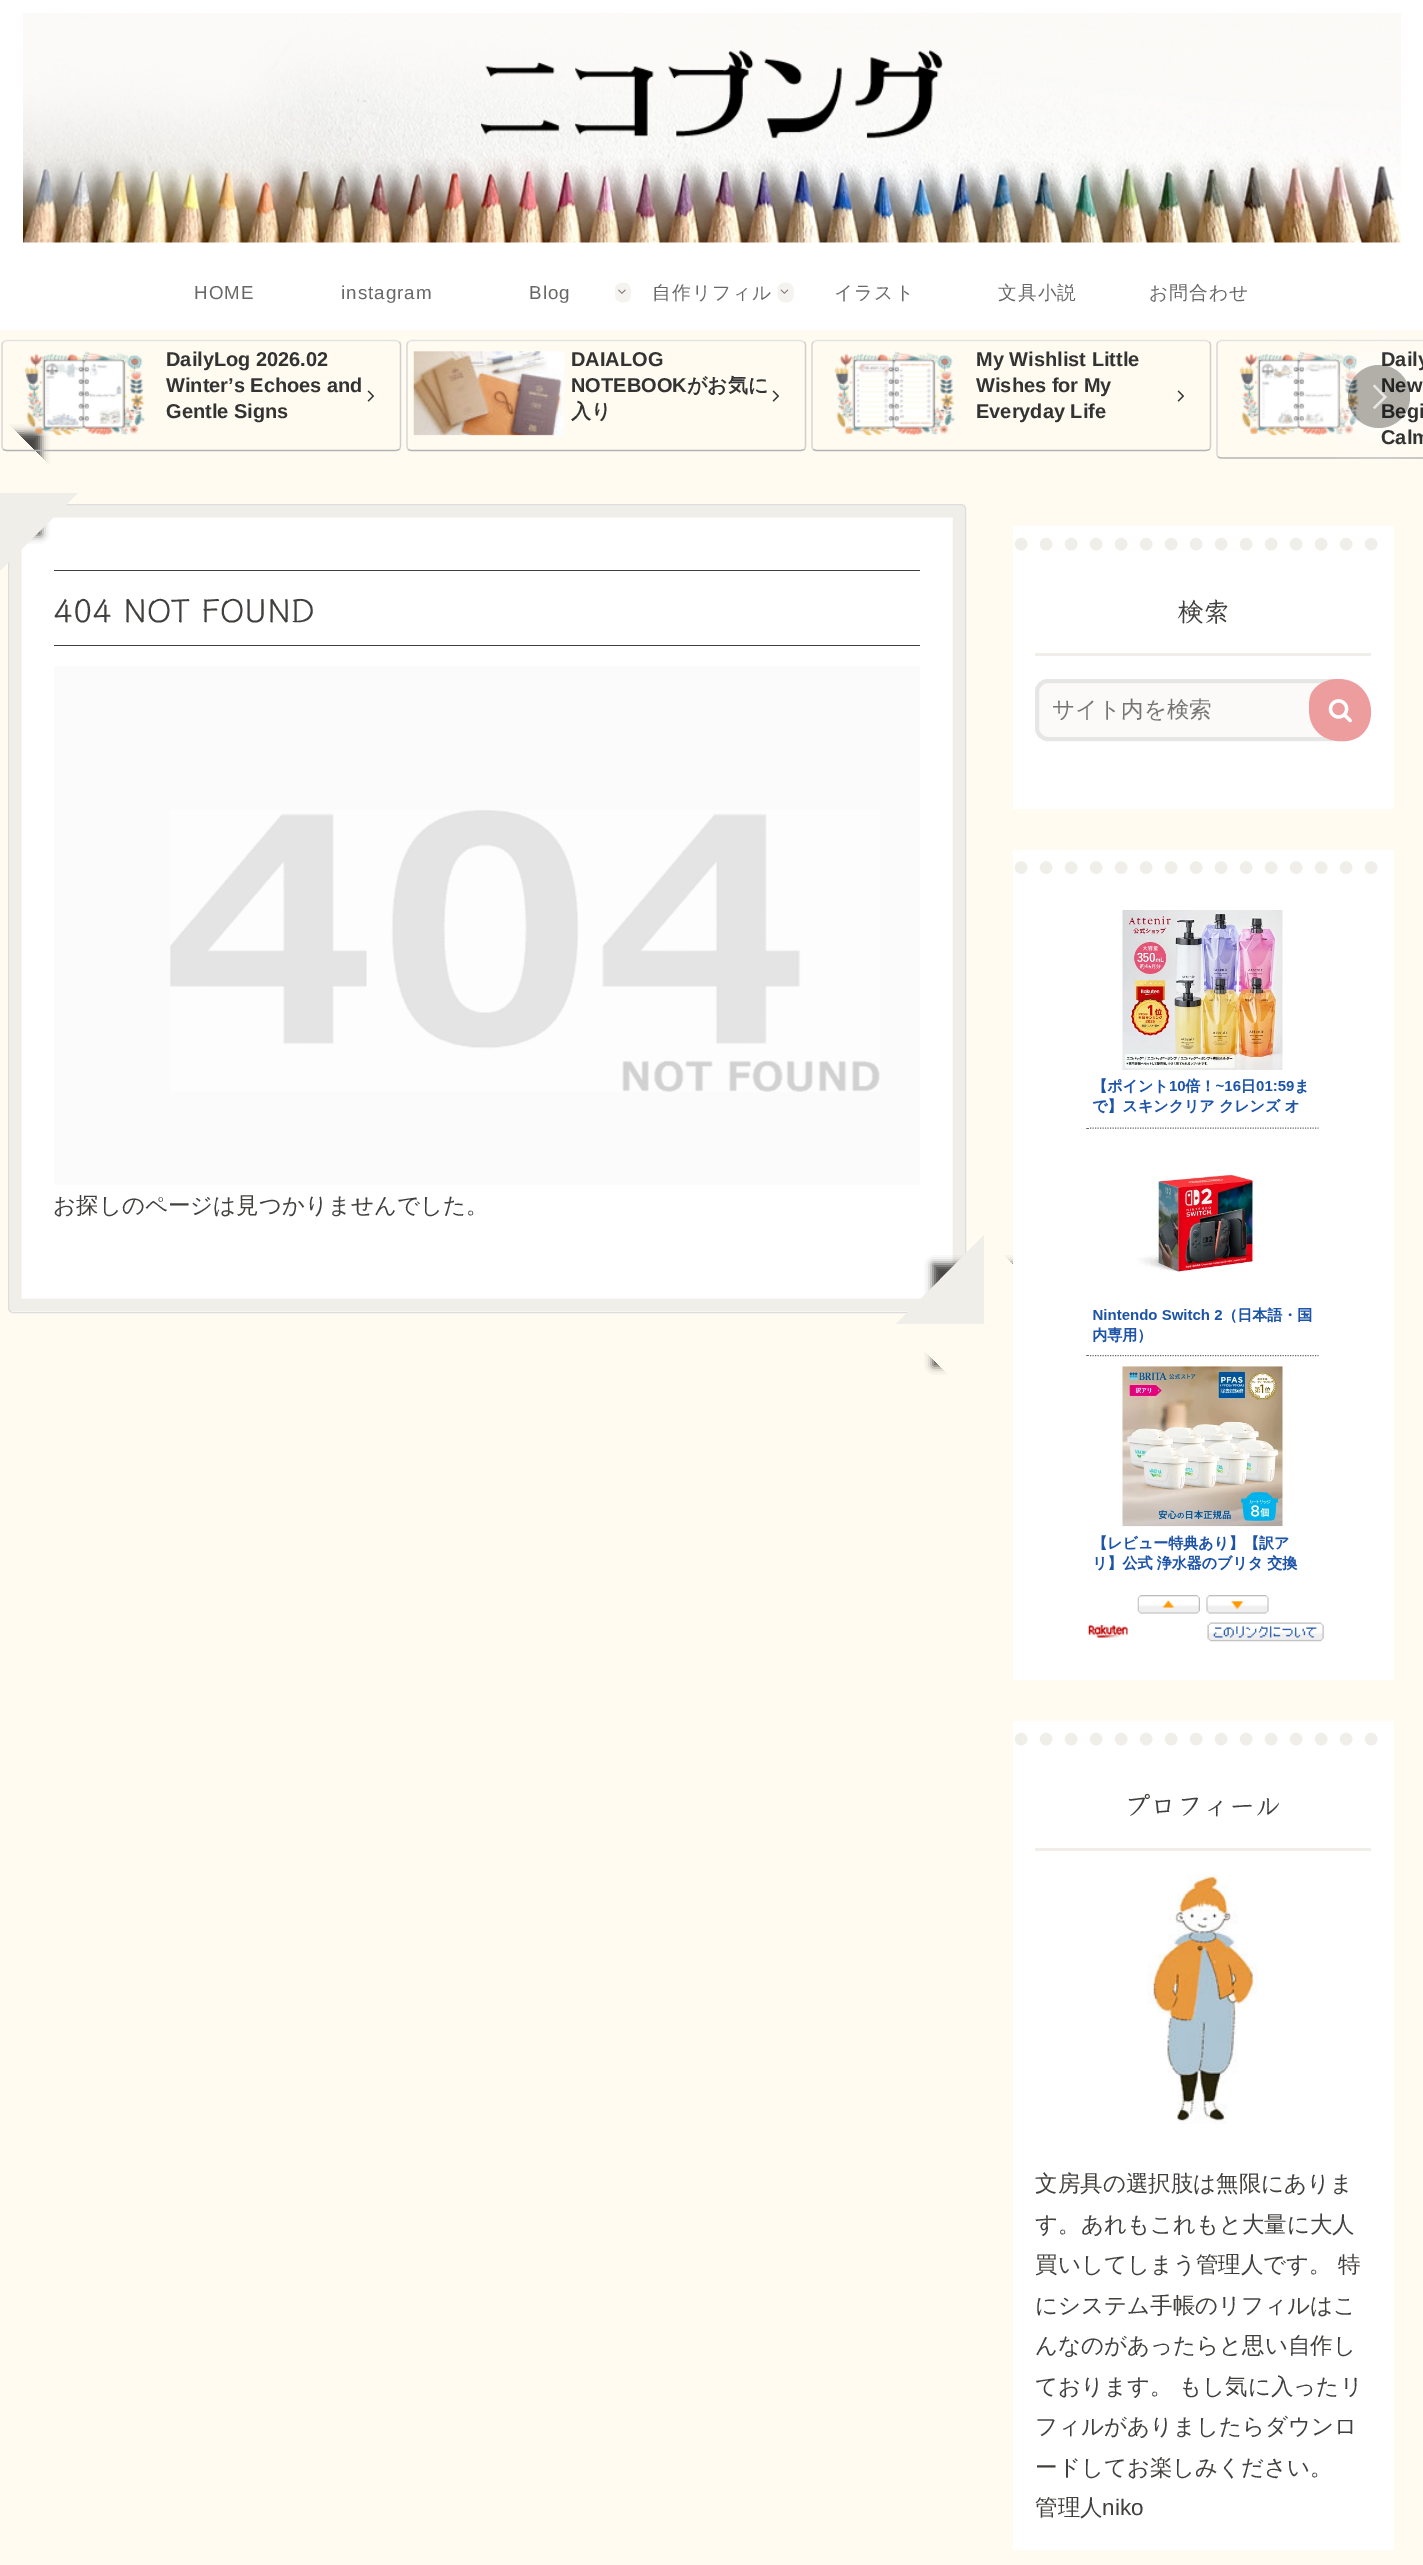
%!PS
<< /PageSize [1423 2565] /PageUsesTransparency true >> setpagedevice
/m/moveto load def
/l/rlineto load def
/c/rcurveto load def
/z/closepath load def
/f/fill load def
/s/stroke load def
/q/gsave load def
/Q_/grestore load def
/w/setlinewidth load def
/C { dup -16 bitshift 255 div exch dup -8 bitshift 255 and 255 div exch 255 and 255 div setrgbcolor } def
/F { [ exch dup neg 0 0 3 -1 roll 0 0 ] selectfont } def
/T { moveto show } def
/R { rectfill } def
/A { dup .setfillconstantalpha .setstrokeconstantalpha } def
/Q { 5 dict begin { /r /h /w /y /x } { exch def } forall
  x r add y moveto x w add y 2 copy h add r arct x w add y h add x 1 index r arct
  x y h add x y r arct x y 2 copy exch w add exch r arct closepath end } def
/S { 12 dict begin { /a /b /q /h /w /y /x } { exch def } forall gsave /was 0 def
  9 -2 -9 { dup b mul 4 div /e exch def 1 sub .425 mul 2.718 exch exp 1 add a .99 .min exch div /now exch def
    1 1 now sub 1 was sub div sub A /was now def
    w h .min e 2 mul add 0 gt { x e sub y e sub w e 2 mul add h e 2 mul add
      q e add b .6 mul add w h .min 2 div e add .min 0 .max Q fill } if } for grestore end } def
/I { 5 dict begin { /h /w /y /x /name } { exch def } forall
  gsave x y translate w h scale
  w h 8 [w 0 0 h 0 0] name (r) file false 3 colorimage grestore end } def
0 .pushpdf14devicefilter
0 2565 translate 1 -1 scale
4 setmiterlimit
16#FFFBF1 C
0 0 1423 2565 R
16#FFFFFF C
0 0 1423 330 R
(1.rgb) 23 13 1378 230 I
/LiberationSans-Regular 18.75 F
16#696867 C
194 299 m 1 0 (HOME) ashow
341 299 m 1 0 (instagram) ashow
529 299 m 1 0 (Blog) ashow
16#F5F3EF C
623 282.5 m 6 0 8 4.5 8 10 c 0 5.5 -1.5 10.5 -8 10 c -7 -.5 -8 -5 -8 -10.5 c 0 -4 l 1 -3.5 4.5 -5.5 8 -5.5 c z f
(2.rgb) 618 289 8 5 I
/WenQuanYiZenHei-Medium 18.75 F
16#696867 C
652 299 m 1 0 (自作リフィル) ashow
16#F5F3EF C
785.5 282.5 m 6 0 8.5 4.5 8.5 10 c 0 5.5 -2 10.5 -8.5 10 c -7 -.5 -8 -5 -8 -10.5 c 0 -4 l 1 -3.5 4.5 -5.5 8 -5.5 c z f
(3.rgb) 780 289 9 5 I
16#696867 C
834 299 m 1 0 (イラスト) ashow
998 299 m 1 0 (文具小説) ashow
1149 299 m 1 0 (お問合わせ) ashow
16#E3E3E3 C
1.2 w
1218 342 m 3 -1.5 l 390 0 l 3.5 1.5 l s
16#B4B4B4 C
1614.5 457 m -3.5 1 l -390 0 l -3 -1 l s
(8.rgb) 1239 351 121 85 I
q
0 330 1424 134 rectclip
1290 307 m 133 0 l 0 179 l -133 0 l z 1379 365 m 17 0 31 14 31 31 c 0 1 l 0 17 -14 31 -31 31 c -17 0 -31 -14 -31 -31 c 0 -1 l 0 -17 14 -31 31 -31 c z eoclip newpath
16#FFFFFF C
1348 365 62 63 31 19 1 S
Q_
/LiberationSans-Bold 20 F
16#333333 C
(Daily) 1381 366 T
(New) 1381 392 T
(Begi) 1381 418 T
0.3 A
16#000000 C
1348 365 62 63 31 Q f
1 A
16#E8E7E5 C
1374.5 384.5 m 12.5 12.5 l -3.5 0 l -10.5 -11 l z 1387 397 m -12.5 12 l -1.5 -1.5 l 10.5 -10.5 l z f
16#E3E3E3 C
3 342 m 3 -1.5 l 390 0 l 3.5 1.5 l s
16#CECECE C
399.5 342 m 1 2.5 l 0 102 l -1 3 l s
16#FFFFFF C
8 504 958 809 5 Q f
16#F0EEE8 C
12.5 w
15 511 m 944 0 l 0 794 l -944 0 l z s
16#DDDDDD C
1 w
8.5 504.5 957 808 4.5 Q s
q
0 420 m 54 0 l 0 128 l -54 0 l z 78 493 m -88.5 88.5 l -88.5 -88.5 l 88.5 -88.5 l z eoclip newpath
16#41403E C
-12 433 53 102 0 4 1 S
Q_
16#B4B4B4 C
1.2 w
399.5 449.5 m -3.5 1 l -389.5 0 l -3.5 -1 l s
16#D6D6D6 C
3 449.5 m -1 -3 l 0 -102 l 1 -2.5 l s
(4.rgb) 24 351 121 85 I
16#333333 C
(DailyLog 2026.02) 166 366 T
(Winter’s Echoes and) 166 392 T
(Gentle Signs) 166 418 T
(5.rgb) 367 390 8 12 I
16#E3E3E3 C
408 342 m 3 -1.5 l 390 0 l 3.5 1.5 l s
16#CECECE C
804.5 342 m 1 2.5 l 0 102 l -1 3 l s
16#B4B4B4 C
804.5 449.5 m -3.5 1 l -390 0 l -3 -1 l s
16#D6D6D6 C
408 449.5 m -1 -3 l 0 -102 l 1 -2.5 l s
(6.rgb) 413 351 151 85 I
16#333333 C
(DAIALOG) 571 366 T
(NOTEBOOK) 571 392 T
/WenQuanYiZenHei-Bold 20 F
(がお気に) 687 392 T
(入り) 571 418 T
(5.rgb) 772 390 8 12 I
16#E3E3E3 C
813 342 m 3 -1.5 l 390 0 l 3.5 1.5 l s
16#CECECE C
1209.5 342 m 1 2.5 l 0 102 l -1 3 l s
16#B4B4B4 C
1209.5 449.5 m -3.5 1 l -390 0 l -3 -1 l s
16#D6D6D6 C
813 449.5 m -1 -3 l 0 -102 l 1 -2.5 l s
(7.rgb) 834 351 121 85 I
/LiberationSans-Bold 20 F
16#333333 C
(My Wishlist Little) 976 366 T
(Wishes for My) 976 392 T
(Everyday Life) 976 418 T
(5.rgb) 1177 390 8 12 I
16#D6D6D6 C
1218 457 m -.5 -1 -1 -2 -1 -3 c 0 -109 l 0 -1 .5 -2.5 1 -3 c s
16#333333 C
(Calm) 1381 444 T
16#41403E C
54 570 866 1 R
16#F0EEE8 C
78 493 m -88 88 l 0 -88 l z f
16#41403E C
54 645 866 1 R
/KleeOne-SemiBold 32.5 F
(404 NOT FOUND) 53 622 T
16#FBFBFB C
54 666 866 519 R
(9.rgb) 170 810 710 282 I
/WenQuanYiZenHei-Medium 22.5 F
16#41403E C
(お探しのページは見つかりませんでした。) 53 1213 T
q
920 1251 m 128 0 l 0 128 l -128 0 l z 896 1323.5 m 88 -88.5 l 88.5 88.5 l -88.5 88.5 l z eoclip newpath
933 1264 102 102 0 4 1 S
Q_
16#F0EEE8 C
896 1324 m 88 -89 l 0 89 l z f
16#FFFFFF C
1013 526 381 283 R
16#F0EEE8 C
12.5 w
1 setlinecap
[0 25] 0 setdash
1021 544 m 364 0 l s
1035 653 336 3 R
/KleeOne-SemiBold 26.25 F
16#41403E C
(検索) 1177 621 T
16#FBFAF8 C
1035 679 310 62 13 Q f
0.7 A
16#DDDDDD C
4 w
0 setlinecap
[] 0 setdash
1037 681 306 58 11 Q s
/WenQuanYiZenHei-Medium 22.5 F
1 A
16#757575 C
(サイト内を検索) 1052 717 T
16#ED9D9D C
1338 679 m 41 0 44 59 8 62 c -21 2 -37 -10 -37 -32 c 0 -5 0 -10 2 -15 c 5 -10 16 -15 27 -15 c z f
(10.rgb) 1328 699 24 24 I
16#FFFFFF C
1013 850 381 830 R
16#F0EEE8 C
12.5 w
1 setlinecap
[0 25] 0 setdash
1021 867.5 m 364 0 l s
(11.rgb) 1086 910 238 732 I
16#FFFFFF C
1013 1721 381 829 R
16#F0EEE8 C
1021 1739 m 364 0 l s
1035 1848 336 3 R
/KleeOne-SemiBold 26.25 F
16#41403E C
(プロフィール) 1124 1815 T
(12.rgb) 1147 1874 111 250 I
/WenQuanYiZenHei-Medium 22.5 F
(文房具の選択肢は無限にありま) 1035 2191 T
(す。あれもこれもと大量に大人) 1035 2232 T
(買いしてしまう管理人です。 特) 1035 2272 T
(にシステム手帳のリフィルはこ) 1035 2313 T
(んなのがあったらと思い自作し) 1035 2353 T
(ております。 もし気に入ったリ) 1035 2394 T
(フィルがありましたらダウンロ) 1035 2434 T
(ードしてお楽しみください。) 1035 2475 T
(管理人) 1035 2515 T
/LiberationSans-Regular 22.5 F
(niko) 1102 2515 T
.poppdf14devicefilter showpage
